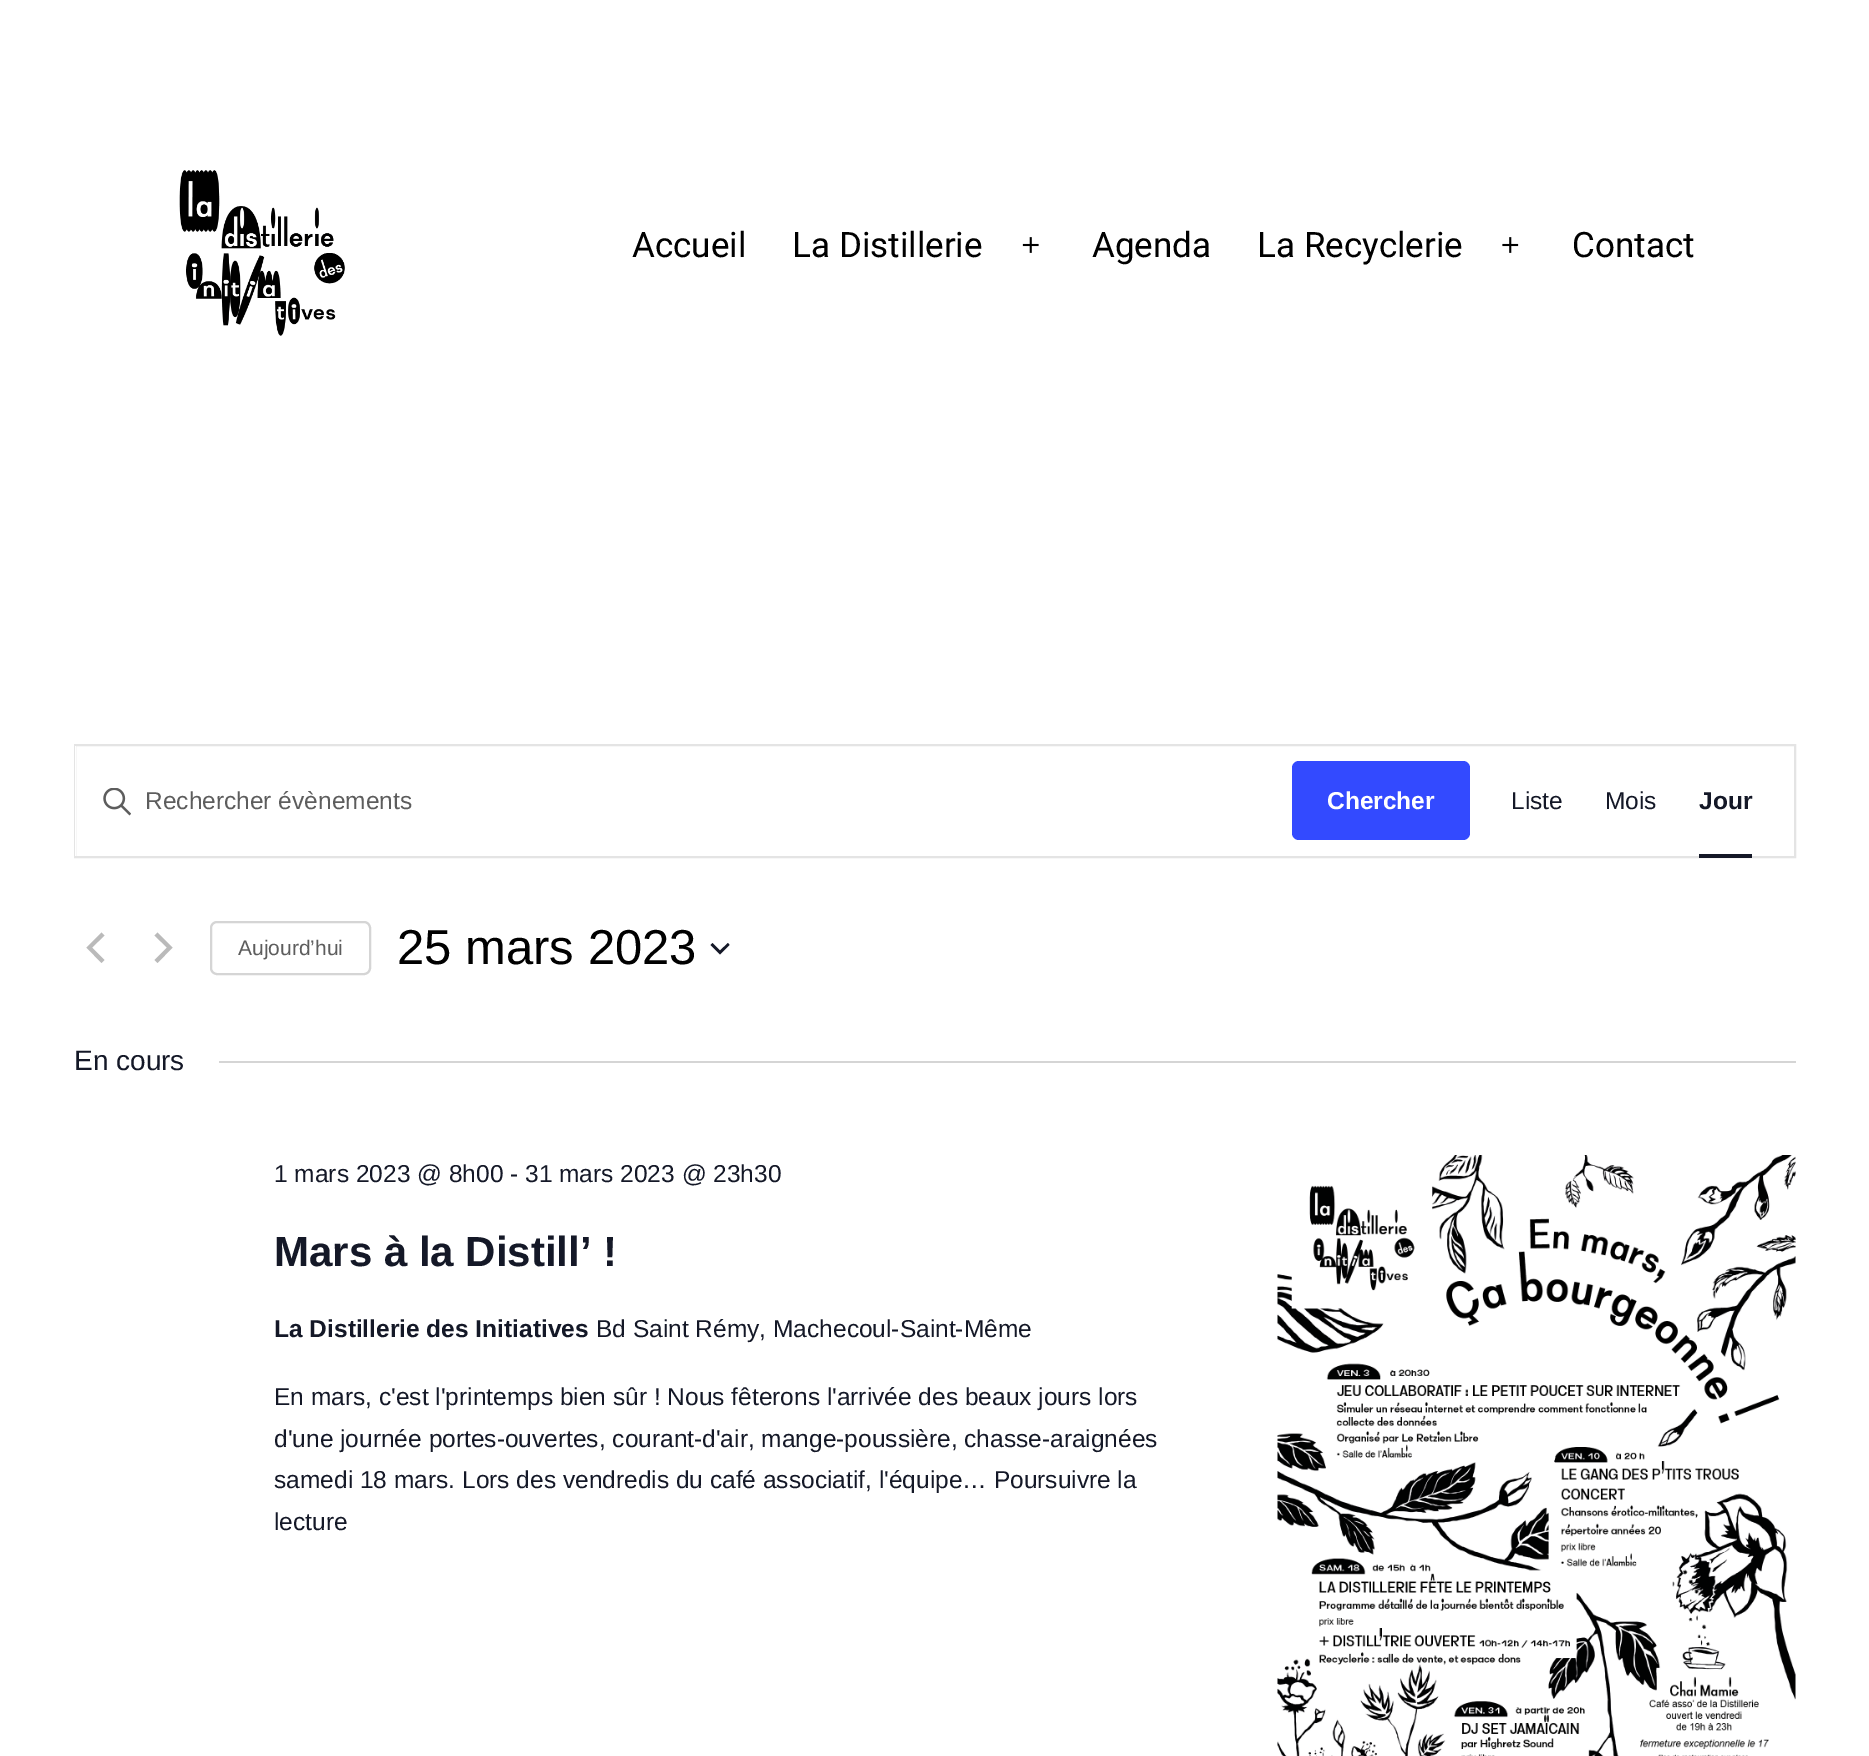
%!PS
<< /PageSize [1869 1756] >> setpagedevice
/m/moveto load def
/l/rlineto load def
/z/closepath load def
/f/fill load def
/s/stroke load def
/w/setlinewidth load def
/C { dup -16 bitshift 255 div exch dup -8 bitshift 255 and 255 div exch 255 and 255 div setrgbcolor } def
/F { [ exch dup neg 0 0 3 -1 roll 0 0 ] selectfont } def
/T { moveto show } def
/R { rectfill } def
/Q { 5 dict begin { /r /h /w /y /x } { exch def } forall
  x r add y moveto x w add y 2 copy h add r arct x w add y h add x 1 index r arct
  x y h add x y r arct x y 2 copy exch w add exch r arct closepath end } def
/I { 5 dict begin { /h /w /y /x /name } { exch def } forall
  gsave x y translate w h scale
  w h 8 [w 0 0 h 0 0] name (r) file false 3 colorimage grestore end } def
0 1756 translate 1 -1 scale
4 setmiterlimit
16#FFFFFF C
0 0 1869 1756 R
(1.rgb) 179 170 166 166 I
/Roboto-Regular 35 F
16#000000 C
(Accueil) 632 257 T
(La Distillerie) 792 257 T
(2.rgb) 1022 237 17 16 I
(Agenda) 1092 257 T
(La Recyclerie) 1257 257 T
(3.rgb) 1502 237 17 16 I
(Contact) 1572 257 T
16#E4E4E4 C
2 w
75 745 1720 112 rectstroke
16#FFFFFF C
75 746 1 110 R
(4.rgb) 103 788 28 28 I
/LiberationSans-Regular 24.5 F
16#5D5D5D C
(Rechercher évènements) 145 809 T
16#334AFF C
1292 761 178 79 7 Q f
/LiberationSans-Bold 24.5 F
16#FFFFFF C
(Chercher) 1327 809 T
/LiberationSans-Regular 24.5 F
16#141827 C
(Liste) 1511 809 T
(Mois) 1605 809 T
/LiberationSans-Bold 24.5 F
(Jour) 1699 809 T
1699 854 53 4 R
16#BABABA C
104.5 960 m -3 3 l -15 -15.5 l 15 -15 l 3 3 l -12.5 12 l z f
154.5 935.5 m 3 -3 l 15 15 l -15 15.5 l -3 -3 l 12.5 -12.5 l z f
16#D5D5D5 C
211 922 159 52 6 Q s
/LiberationSans-Regular 21 F
16#5D5D5D C
(Aujourd’hui) 238 955 T
/LiberationSans-Regular 49 F
16#000000 C
(25 mars 2023) 397 964 T
16#141827 C
712.5 943 m 7.5 7.5 l 8 -7.5 l 1.5 2 l -9.5 9.5 l -9.5 -9.5 l z eofill
/LiberationSans-Regular 28 F
(En cours) 74 1070 T
16#D5D5D5 C
219 1061 1577 2 R
/LiberationSans-Regular 24.5 F
16#141827 C
(1 mars 2023 @ 8h00 - 31 mars 2023 @ 23h30) 274 1182 T
/LiberationSans-Bold 42 F
(Mars à la Distill’ !) 274 1266 T
/LiberationSans-Bold 24.5 F
(La Distillerie des Initiatives) 274 1337 T
/LiberationSans-Regular 24.5 F
(Bd Saint Rémy, Machecoul-Saint-Même) 596 1337 T
(En mars, c'est l'printemps bien sûr ! Nous fêterons l'arrivée des beaux jours lors) 274 1405 T
(d'une journée portes-ouvertes, courant-d'air, mange-poussière, chasse-araignées) 274 1447 T
(samedi 18 mars. Lors des vendredis du café associatif, l'équipe… Poursuivre la) 274 1488 T
(lecture) 274 1530 T
(5.rgb) 1277 1155 519 601 I
showpage
